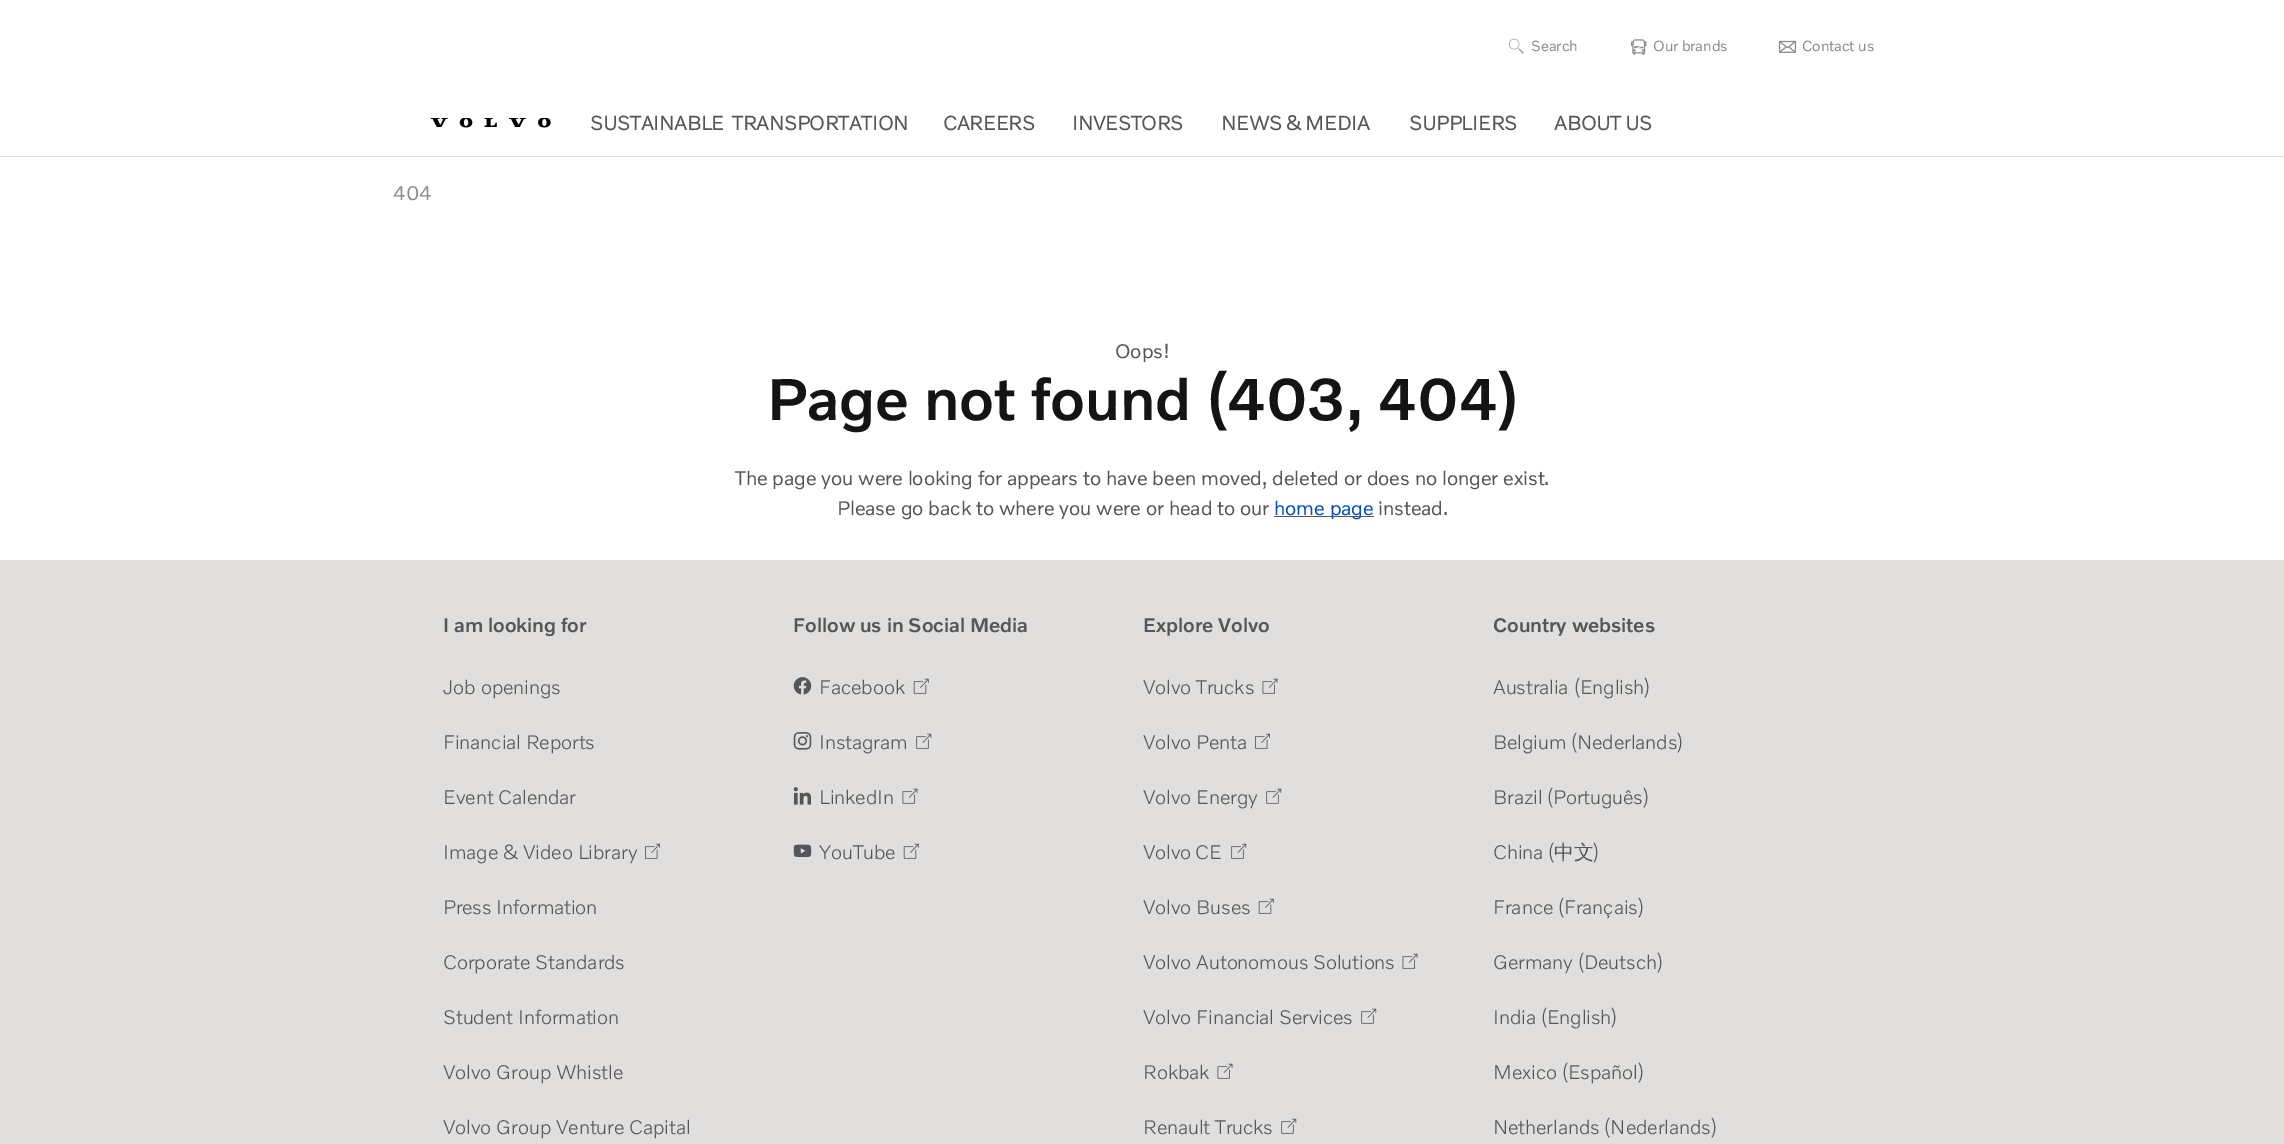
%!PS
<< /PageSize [2284 1144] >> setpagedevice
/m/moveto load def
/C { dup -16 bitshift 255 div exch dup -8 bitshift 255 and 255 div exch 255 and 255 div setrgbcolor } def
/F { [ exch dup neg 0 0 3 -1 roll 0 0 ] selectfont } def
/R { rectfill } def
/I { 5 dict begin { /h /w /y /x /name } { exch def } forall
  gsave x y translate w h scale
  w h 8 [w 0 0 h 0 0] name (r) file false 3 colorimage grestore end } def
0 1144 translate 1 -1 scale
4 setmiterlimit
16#FFFFFF C
0 0 2284 1144 R
16#E1DFDD C
0 156 2284 1 R
(1.rgb) 1508 38 16 16 I
/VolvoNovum-Regular 15 F
16#888B8D C
1531 51 m -.12 0 (Search) ashow
(2.rgb) 1630 39 17 16 I
1653 51 m -.12 0 (Our brands) ashow
(3.rgb) 1778 40 19 13 I
1802 51 m -.12 0 (Contact us) ashow
(4.rgb) 430 118 121 10 I
/VolvoNovum-Bold 20 F
16#53565A C
590 130 m -1 0 32 -.12 0 (SUSTAINABLE) awidthshow
732 130 m -1 0 32 -.12 0 (TRANSPORTATION) awidthshow
943 130 m -.12 0 (CAREERS) ashow
1072 130 m -.12 0 (INVESTORS) ashow
1221 130 m -1 0 32 -.12 0 (NEWS & MEDIA) awidthshow
1409 130 m -.12 0 (SUPPLIERS) ashow
1554 130 m -1 0 32 -.12 0 (ABOUT US) awidthshow
/VolvoNovum-Regular 20 F
16#888B8D C
393 200 m -.12 0 (404) ashow
16#53565A C
1115 358 m -.12 0 (Oops!) ashow
/VolvoNovum-Medium 60 F
16#141414 C
767 420 m -.12 0 (Page not found \(403, 404\)) ashow
/VolvoNovum-Regular 20 F
16#53565A C
735 485 m -.12 0 (The page you were looking for appears to have been moved, deleted or does no longer exist.) ashow
837 515 m -.12 0 (Please go back to where you were or head to our) ashow
1274 516 100 1 R
16#004FBC C
1274 515 m -.12 0 (home page) ashow
16#53565A C
1378 515 m -.12 0 (instead.) ashow
16#E1DFDD C
0 560 2284 584 R
/VolvoNovum-Medium 20 F
16#53565A C
443 632 m -.12 0 (I am looking for) ashow
/VolvoNovum-Light 20 F
443 694 m -.12 0 (Job openings) ashow
443 749 m -.12 0 (Financial Reports) ashow
443 804 m -.12 0 (Event Calendar) ashow
443 859 m -.12 0 (Image & Video Library) ashow
(5.rgb) 645 843 15 16 I
443 914 m -.12 0 (Press Information) ashow
443 969 m -.12 0 (Corporate Standards) ashow
443 1024 m -.12 0 (Student Information) ashow
443 1079 m -.12 0 (Volvo Group Whistle) ashow
443 1134 m -.12 0 (Volvo Group Venture Capital) ashow
/VolvoNovum-Medium 20 F
793 632 m -.12 0 (Follow us in Social Media) ashow
(6.rgb) 793 677 19 18 I
/VolvoNovum-Light 20 F
819 694 m -.12 0 (Facebook) ashow
(7.rgb) 913 678 16 16 I
(8.rgb) 793 732 19 18 I
819 749 m -.12 0 (Instagram) ashow
(9.rgb) 916 733 16 16 I
(10.rgb) 793 787 19 18 I
819 804 m -.12 0 (LinkedIn) ashow
(11.rgb) 902 788 16 16 I
(12.rgb) 793 844 19 14 I
819 859 m -.12 0 (YouTube) ashow
(7.rgb) 903 843 16 16 I
/VolvoNovum-Medium 20 F
1143 632 m -.12 0 (Explore Volvo) ashow
/VolvoNovum-Light 20 F
1143 694 m -.12 0 (Volvo Trucks) ashow
(11.rgb) 1262 678 16 16 I
1143 749 m -.12 0 (Volvo Penta) ashow
(5.rgb) 1255 733 15 16 I
1143 804 m -.12 0 (Volvo Energy) ashow
(9.rgb) 1266 788 16 16 I
1143 859 m -1 0 32 -.12 0 (Volvo CE) awidthshow
(9.rgb) 1231 843 16 16 I
1143 914 m -.12 0 (Volvo Buses) ashow
(7.rgb) 1258 898 16 16 I
1143 969 m -.12 0 (Volvo Autonomous Solutions) ashow
(11.rgb) 1402 953 16 16 I
1143 1024 m -.12 0 (Volvo Financial Services) ashow
(9.rgb) 1361 1008 16 16 I
1143 1079 m -.12 0 (Rokbak) ashow
(11.rgb) 1217 1063 16 16 I
1143 1134 m -.12 0 (Renault Trucks) ashow
(9.rgb) 1281 1118 16 16 I
/VolvoNovum-Medium 20 F
1493 632 m -.12 0 (Country websites) ashow
/VolvoNovum-Light 20 F
1493 694 m -.12 0 (Australia \(English\)) ashow
1493 749 m -.12 0 (Belgium \(Nederlands\)) ashow
1493 804 m -.12 0 (Brazil \(Português\)) ashow
1493 859 m -.12 0 (China \() ashow
/WenQuanYiZenHei-Medium 20 F
1554 859 m -.12 0 (中文) ashow
/VolvoNovum-Light 20 F
1593 859 m -.12 0 (\)) ashow
1493 914 m -.12 0 (France \(Français\)) ashow
1493 969 m -.12 0 (Germany \(Deutsch\)) ashow
1493 1024 m -.12 0 (India \(English\)) ashow
1493 1079 m -.12 0 (Mexico \(Español\)) ashow
1493 1134 m -.12 0 (Netherlands \(Nederlands\)) ashow
showpage
